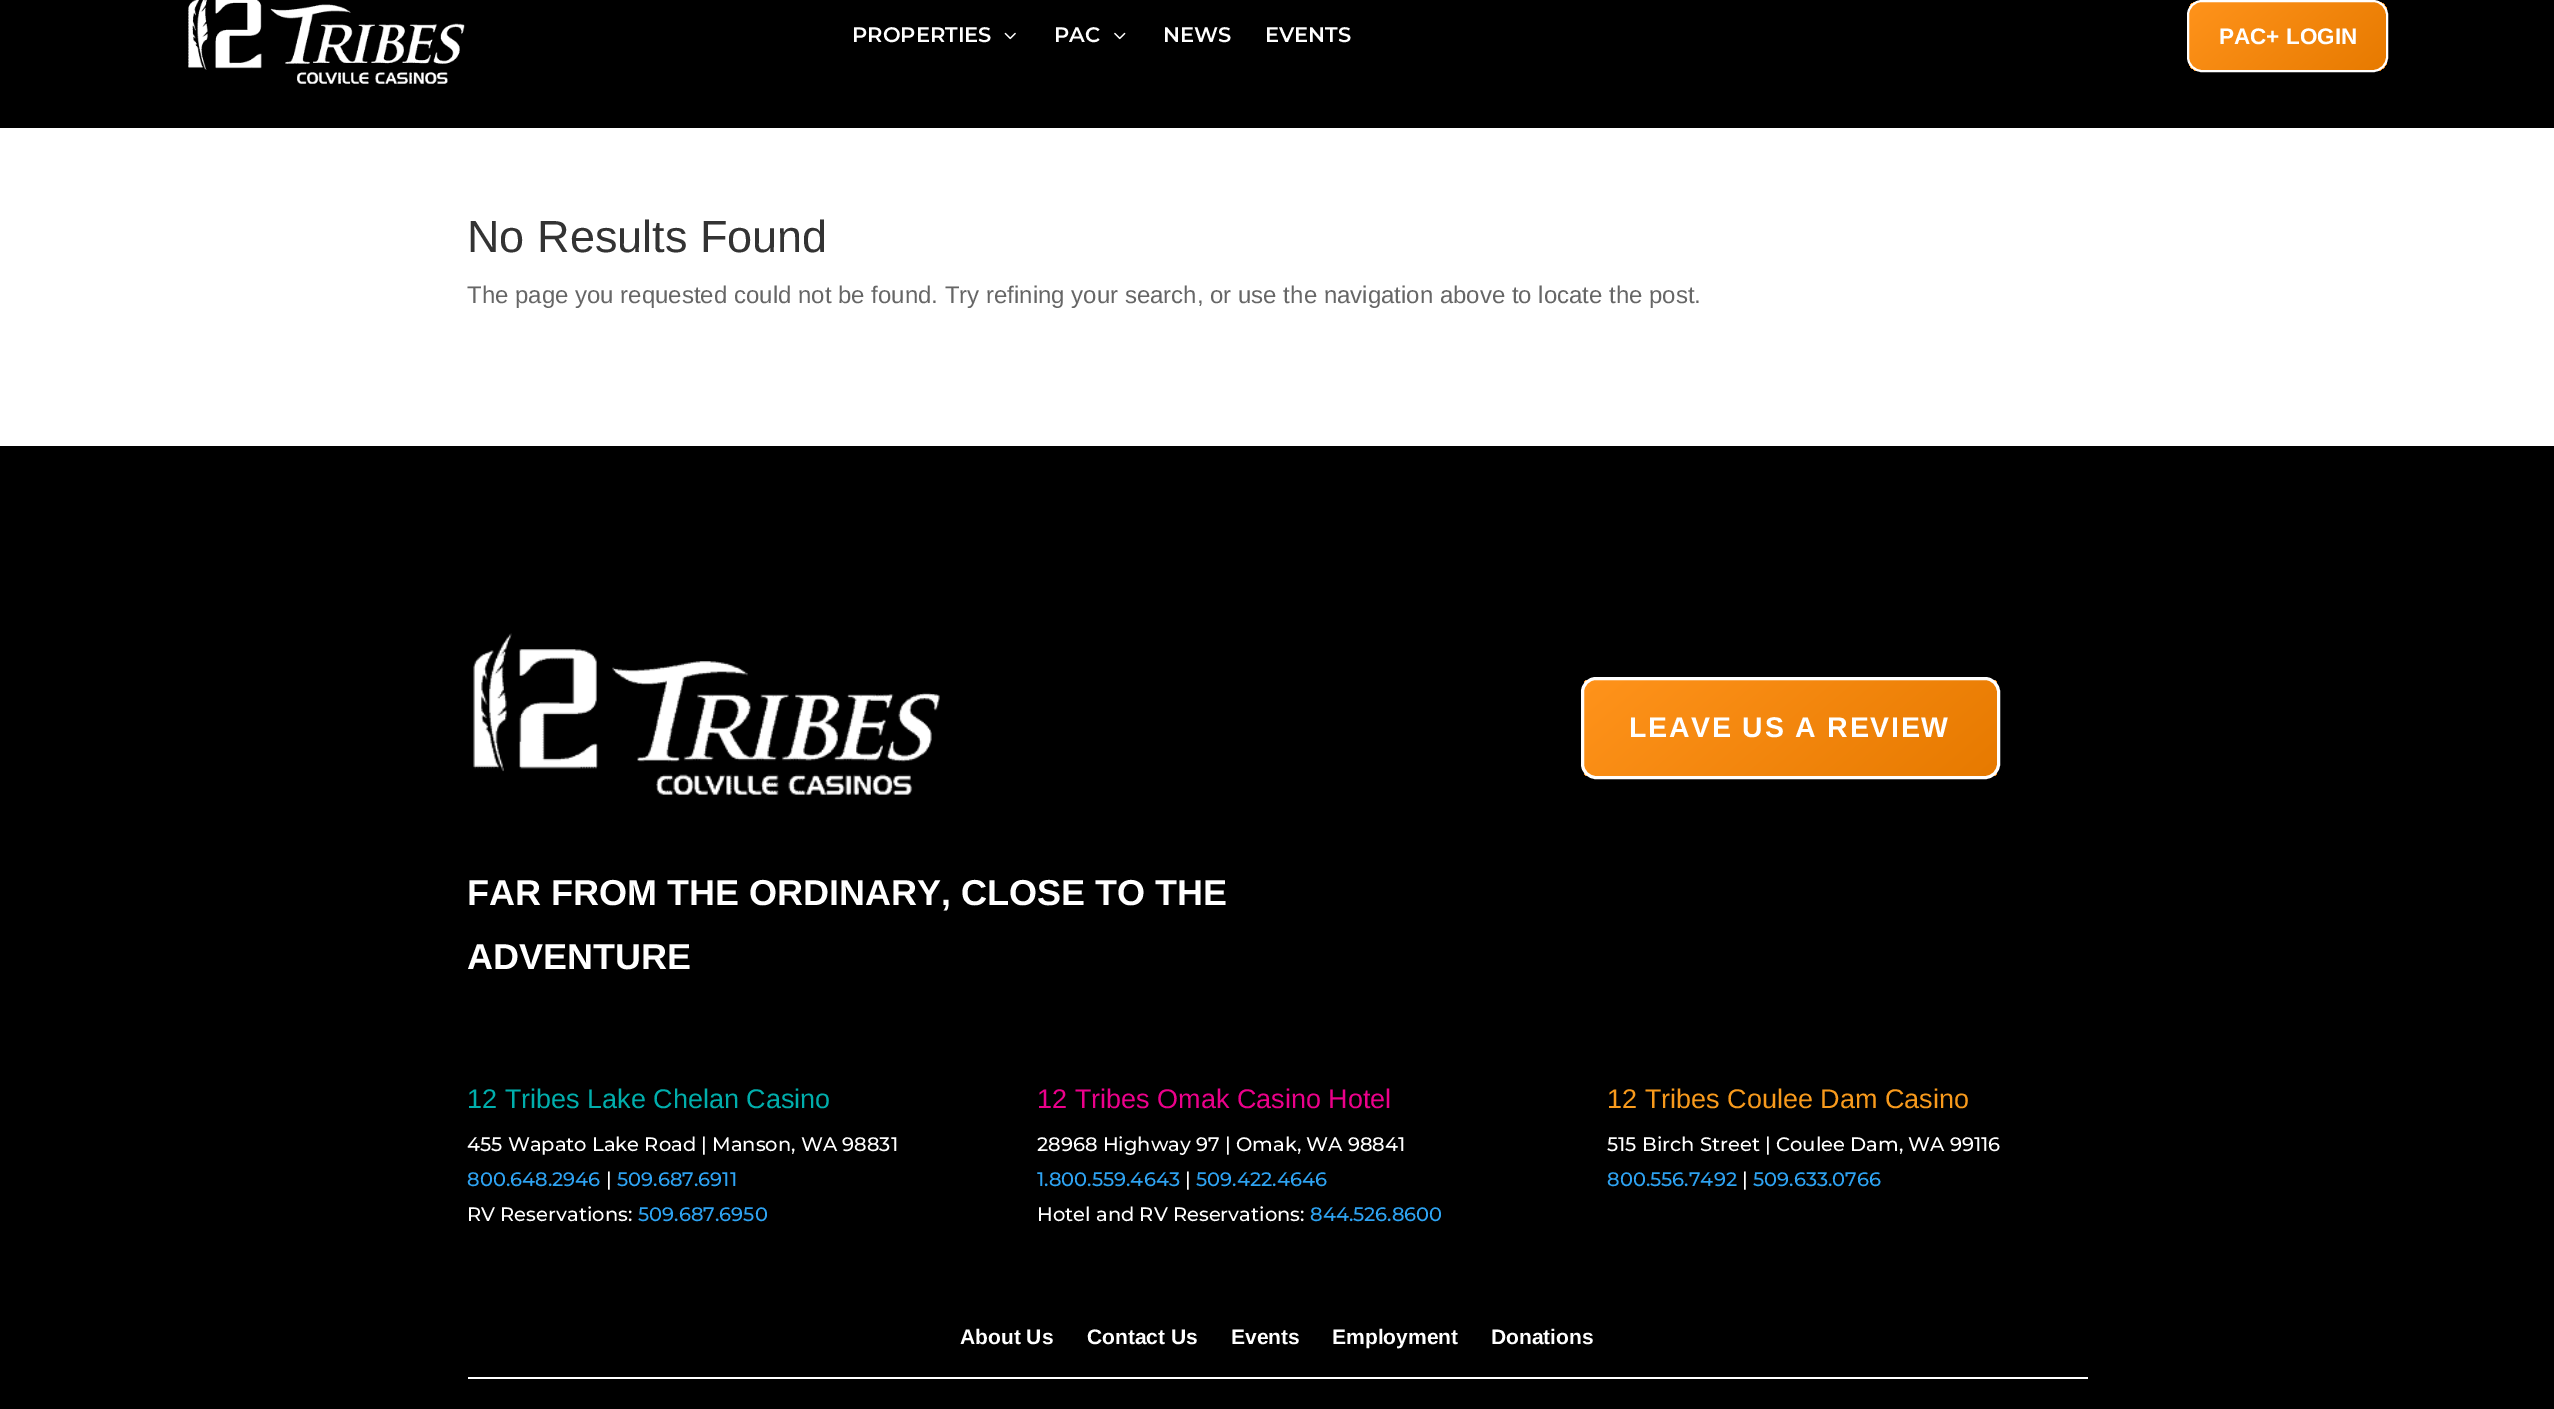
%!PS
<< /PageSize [2554 1409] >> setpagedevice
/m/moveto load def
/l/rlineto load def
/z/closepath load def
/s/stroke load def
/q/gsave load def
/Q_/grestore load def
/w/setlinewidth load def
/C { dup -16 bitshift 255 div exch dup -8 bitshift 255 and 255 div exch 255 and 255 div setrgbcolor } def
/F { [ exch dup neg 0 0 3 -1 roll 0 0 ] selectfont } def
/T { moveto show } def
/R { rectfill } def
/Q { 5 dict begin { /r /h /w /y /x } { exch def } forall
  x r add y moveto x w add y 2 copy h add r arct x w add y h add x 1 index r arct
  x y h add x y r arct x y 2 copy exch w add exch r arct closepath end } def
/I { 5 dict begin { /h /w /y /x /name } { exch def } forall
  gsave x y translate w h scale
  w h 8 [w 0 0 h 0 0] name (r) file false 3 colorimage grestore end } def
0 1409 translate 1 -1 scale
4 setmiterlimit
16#FFFFFF C
0 0 2554 1409 R
16#000000 C
0 0 2554 128 R
(1.rgb) 188 0 277 84 I
/Montserrat-SemiBold 21 F
16#FFFFFF C
(PROPERTIES) 852 42 T
(2.rgb) 1004 32 12 8 I
(PAC) 1054 42 T
(3.rgb) 1114 32 12 8 I
(NEWS) 1163 42 T
(EVENTS) 1265 42 T
q
2187 0 201 72 15 Q clip newpath
q 2189 2 m 198 0 l 0 69 l -198 0 l z clip newpath
<< /ShadingType 2 /ColorSpace /DeviceRGB /Coords [2230 -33 2345 105] /Extend [true true] /Function << /FunctionType 2 /Domain [0 1] /C0 [1 .576 .106] /C1 [.906 .478 0] /N 1 >> >> shfill Q_
Q_
2 w
2188 1 199 70 14 Q s
/LiberationSans-Bold 22.5 F
(PAC+ LOGIN) 2219 44 T
/LiberationSans-Regular 45 F
16#333333 C
(No Results Found) 467 252 T
/LiberationSans-Regular 24 F
16#666666 C
(The page you requested could not be found. Try refining your search, or use the navigation above to locate the post.) 467 303 T
16#000000 C
0 446 2554 963 R
q
1581 677 419 102 15 Q clip newpath
q 1584 680 m 413 0 l 0 96 l -413 0 l z clip newpath
<< /ShadingType 2 /ColorSpace /DeviceRGB /Coords [1681 598 1899 857] /Extend [true true] /Function << /FunctionType 2 /Domain [0 1] /C0 [1 .576 .106] /C1 [.906 .478 0] /N 1 >> >> shfill Q_
Q_
16#FFFFFF C
3 w
1582.5 678.5 416 99 13.5 Q s
/LiberationSans-Bold 28.5 F
1629 737 m 1.75 0 (LEAVE US A REVIEW) ashow
(4.rgb) 473 633 467 162 I
/LiberationSans-Bold 36 F
(FAR FROM THE ORDINARY, CLOSE TO THE) 467 905 T
(ADVENTURE) 467 969 T
/LiberationSans-Regular 27 F
16#00AEAC C
(12 Tribes Lake Chelan Casino) 467 1108 T
/Montserrat-Medium 19.5 F
16#FFFFFF C
(455 Wapato Lake Road | Manson, WA 98831) 467 1151 T
16#2EA3F2 C
(800.648.2946) 467 1186 T
16#FFFFFF C
(|) 606 1186 T
16#2EA3F2 C
(509.687.6911) 617 1186 T
16#FFFFFF C
(RV Reservations:) 467 1221 T
16#2EA3F2 C
(509.687.6950) 638 1221 T
/LiberationSans-Regular 27 F
16#EC008B C
(12 Tribes Omak Casino Hotel) 1037 1108 T
/Montserrat-Medium 19.5 F
16#FFFFFF C
(28968 Highway 97 | Omak, WA 98841) 1037 1151 T
16#2EA3F2 C
(1.800.559.4643) 1037 1186 T
16#FFFFFF C
(|) 1185 1186 T
16#2EA3F2 C
(509.422.4646) 1196 1186 T
16#FFFFFF C
(Hotel and RV Reservations:) 1037 1221 T
16#2EA3F2 C
(844.526.8600) 1310 1221 T
/LiberationSans-Regular 27 F
16#F89A1C C
(12 Tribes Coulee Dam Casino) 1607 1108 T
/Montserrat-Medium 19.5 F
16#FFFFFF C
(515 Birch Street | Coulee Dam, WA 99116) 1607 1151 T
16#2EA3F2 C
(800.556.7492) 1607 1186 T
16#FFFFFF C
(|) 1742 1186 T
16#2EA3F2 C
(509.633.0766) 1753 1186 T
/LiberationSans-Bold 21 F
16#FFFFFF C
(About Us) 960 1344 T
(Contact Us) 1087 1344 T
(Events) 1231 1344 T
(Employment) 1332 1344 T
(Donations) 1491 1344 T
468 1377 1620 2 R
showpage
